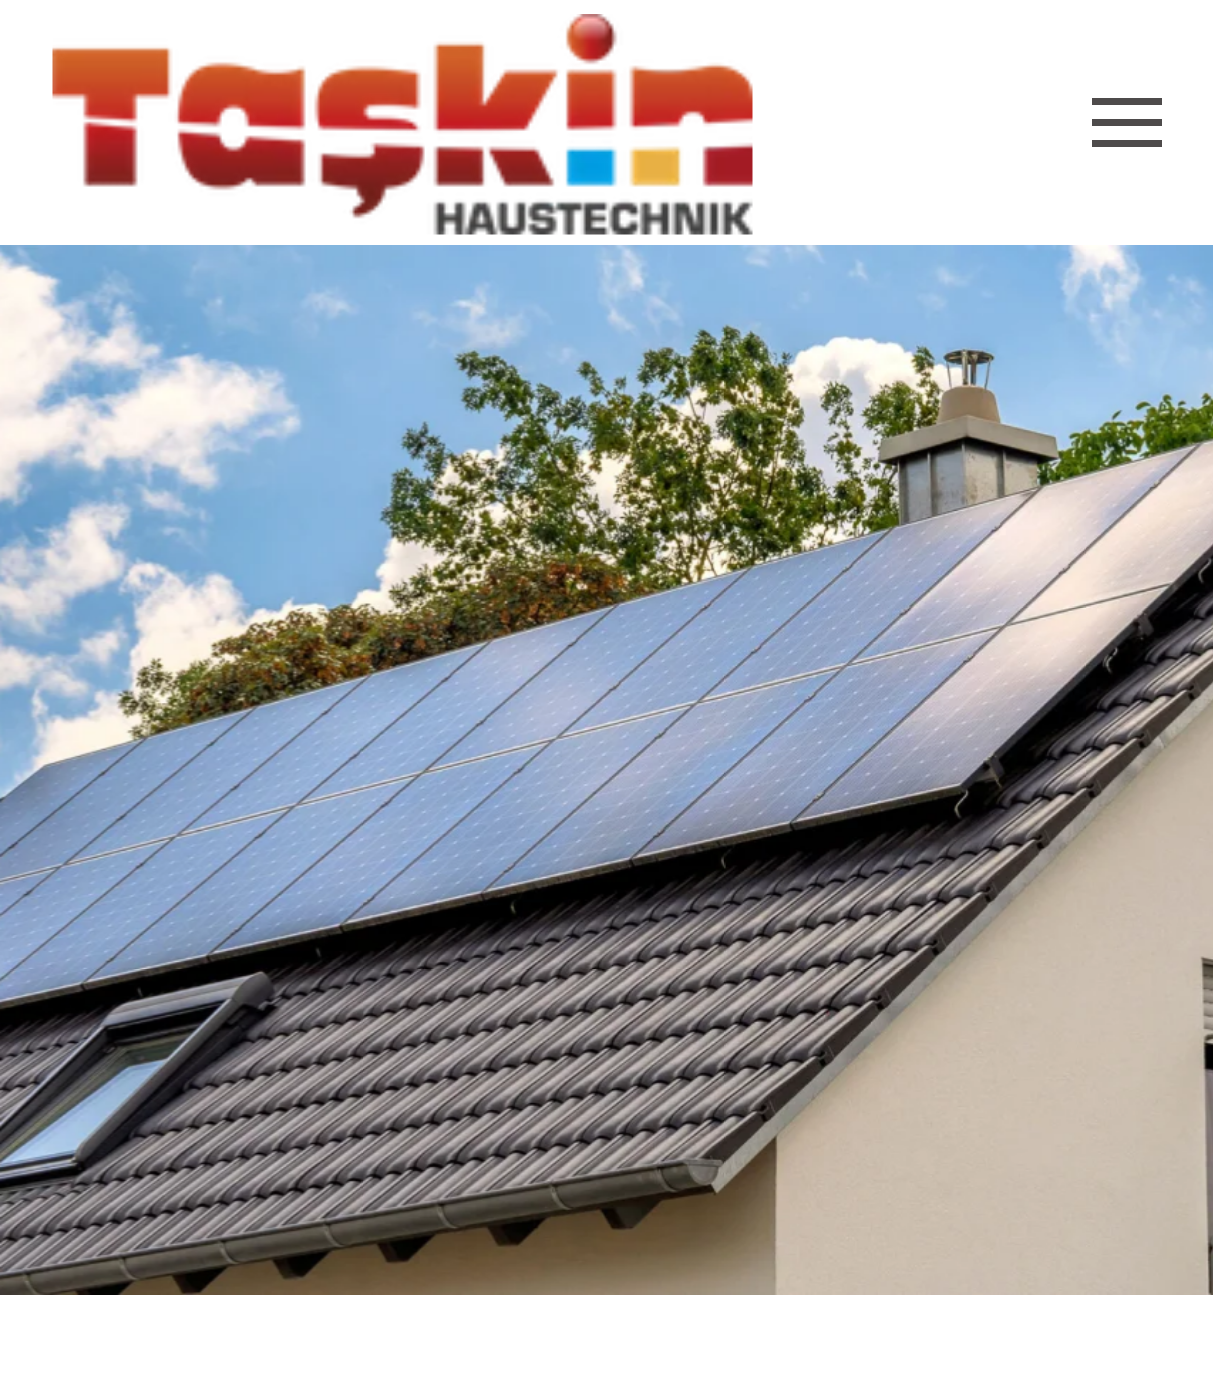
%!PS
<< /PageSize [1213 1380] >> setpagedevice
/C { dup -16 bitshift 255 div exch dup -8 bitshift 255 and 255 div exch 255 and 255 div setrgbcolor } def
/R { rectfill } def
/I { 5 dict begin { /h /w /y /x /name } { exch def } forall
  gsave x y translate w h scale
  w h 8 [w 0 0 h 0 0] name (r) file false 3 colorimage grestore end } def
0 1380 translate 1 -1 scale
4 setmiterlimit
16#FFFFFF C
0 0 1213 1380 R
(1.rgb) 52 14 701 221 I
16#4E4B4B C
1092 98 70 7 R
1092 119 70 7 R
1092 140 70 7 R
(2.rgb) 0 245 1213 1050 I
showpage
